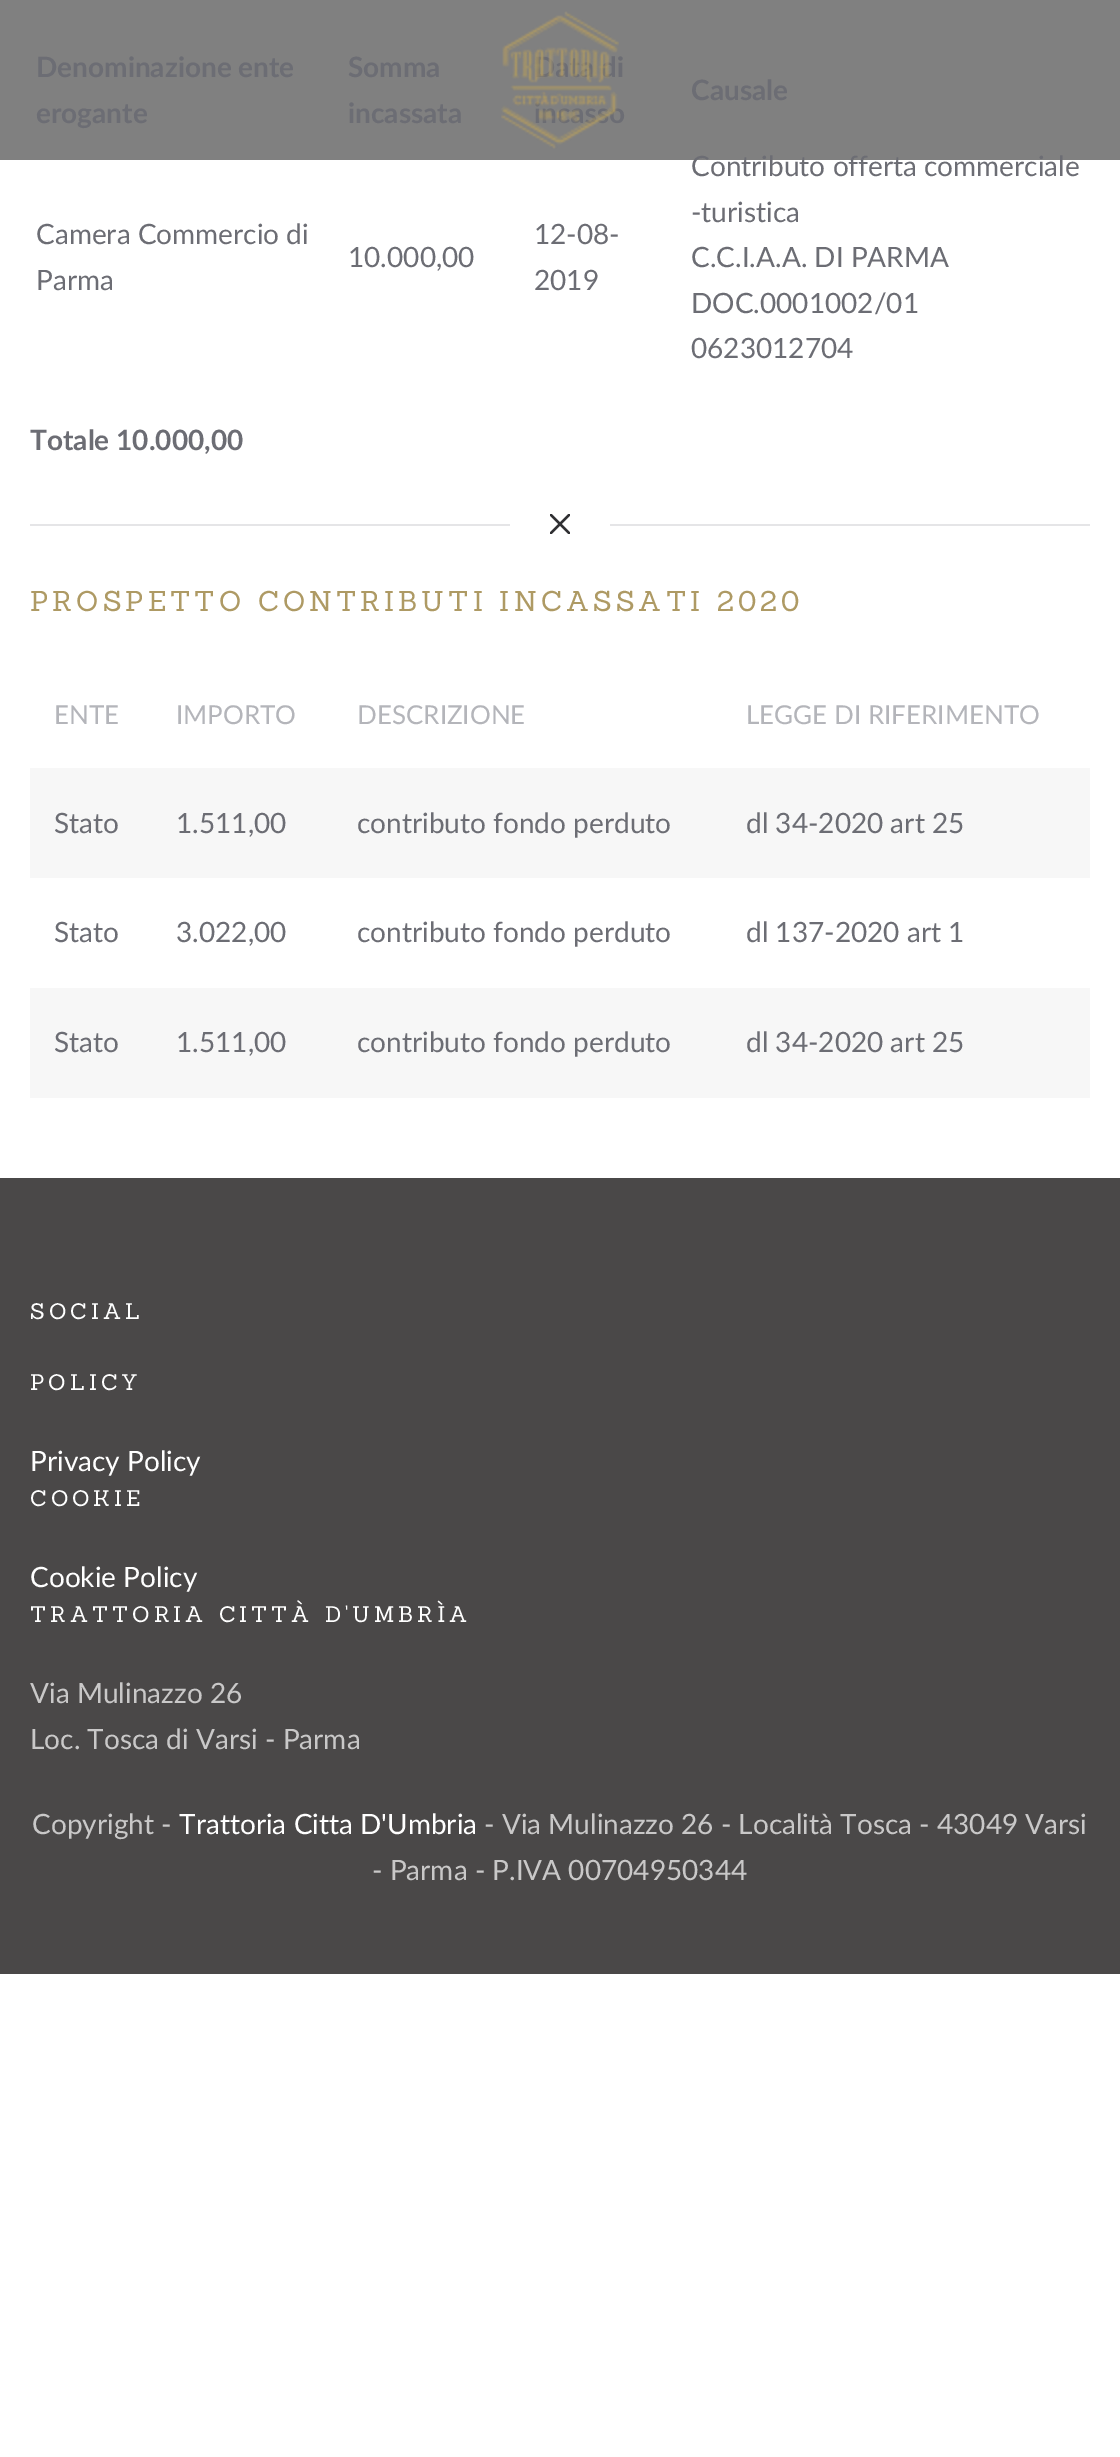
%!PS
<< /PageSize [1120 2457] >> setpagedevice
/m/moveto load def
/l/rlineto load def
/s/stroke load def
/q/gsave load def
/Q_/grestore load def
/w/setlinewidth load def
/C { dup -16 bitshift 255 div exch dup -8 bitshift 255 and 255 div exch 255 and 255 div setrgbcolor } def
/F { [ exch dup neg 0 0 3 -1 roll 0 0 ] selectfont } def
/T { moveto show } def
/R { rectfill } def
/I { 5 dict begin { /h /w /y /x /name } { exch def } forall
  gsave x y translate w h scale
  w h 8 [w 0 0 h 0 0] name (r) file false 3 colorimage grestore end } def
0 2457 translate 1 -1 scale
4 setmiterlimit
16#FFFFFF C
0 0 1120 2457 R
16#808080 C
0 0 1120 160 R
/Lato-Bold 28 F
16#6C6D74 C
(Data di) 534 77 T
(incasso) 534 123 T
(1.rgb) 501 11 118 138 I
(Denominazione ente) 36 77 T
(erogante) 36 123 T
(Somma) 348 77 T
(incassata) 348 123 T
(Causale) 691 100 T
/Lato-Regular 28 F
(Camera Commercio di) 36 244 T
(Parma) 36 290 T
(10.000,00) 348 267 T
(12-08-) 534 244 T
(2019) 534 290 T
(Contributo offerta commerciale) 691 176 T
(-turistica) 691 222 T
(C.C.I.A.A. DI PARMA) 691 267 T
(DOC.0001002/01) 691 313 T
(0623012704) 691 358 T
/Lato-Bold 28 F
(Totale 10.000,00) 30 450 T
q
550 514 20 20 rectclip
16#303033 C
2.2 w
550 514 m 20 20 l 570 514 m -20 20 l s
Q_
16#E5E5E7 C
30 524 480 2 R
610 524 480 2 R
/Sanchez-Regular 28 F
16#AE9A64 C
30 611 m 4 0 (PROSPETTO CONTRIBUTI INCASSATI 2020) ashow
/Lato-Regular 26 F
16#B4B5BA C
(ENTE) 54 724 T
(IMPORTO) 176 724 T
(DESCRIZIONE) 357 724 T
(LEGGE DI RIFERIMENTO) 746 724 T
16#F7F7F7 C
30 768 1060 110 R
/Lato-Regular 28 F
16#6C6D74 C
(Stato) 54 833 T
(1.511,00) 176 833 T
(contributo fondo perduto) 357 833 T
(dl 34-2020 art 25) 746 833 T
(Stato) 54 942 T
(3.022,00) 176 942 T
(contributo fondo perduto) 357 942 T
(dl 137-2020 art 1) 746 942 T
16#F7F7F7 C
30 988 1060 110 R
16#6C6D74 C
(Stato) 54 1052 T
(1.511,00) 176 1052 T
(contributo fondo perduto) 357 1052 T
(dl 34-2020 art 25) 746 1052 T
16#4A4848 C
0 1178 1120 796 R
/Sanchez-Regular 22 F
16#FFFFFF C
30 1319 m 4 0 (SOCIAL) ashow
30 1390 m 4 0 (POLICY) ashow
/Lato-Regular 28 F
(Privacy Policy) 30 1471 T
/Sanchez-Regular 22 F
30 1506 m 4 0 (COOKIE) ashow
/Lato-Regular 28 F
(Cookie Policy) 30 1587 T
/Sanchez-Regular 22 F
30 1622 m 4 0 (TRATTORIA CITTÀ D'UMBRÌA) ashow
/Lato-Regular 28 F
16#C9C8C8 C
(Via Mulinazzo 26) 30 1703 T
(Loc. Tosca di Varsi - Parma) 30 1749 T
(Copyright -) 32 1834 T
16#FFFFFF C
(Trattoria Citta D'Umbria) 179 1834 T
16#C9C8C8 C
(- Via Mulinazzo 26 - Località Tosca - 43049 Varsi) 484 1834 T
(- Parma - P.IVA 00704950344) 372 1880 T
showpage
